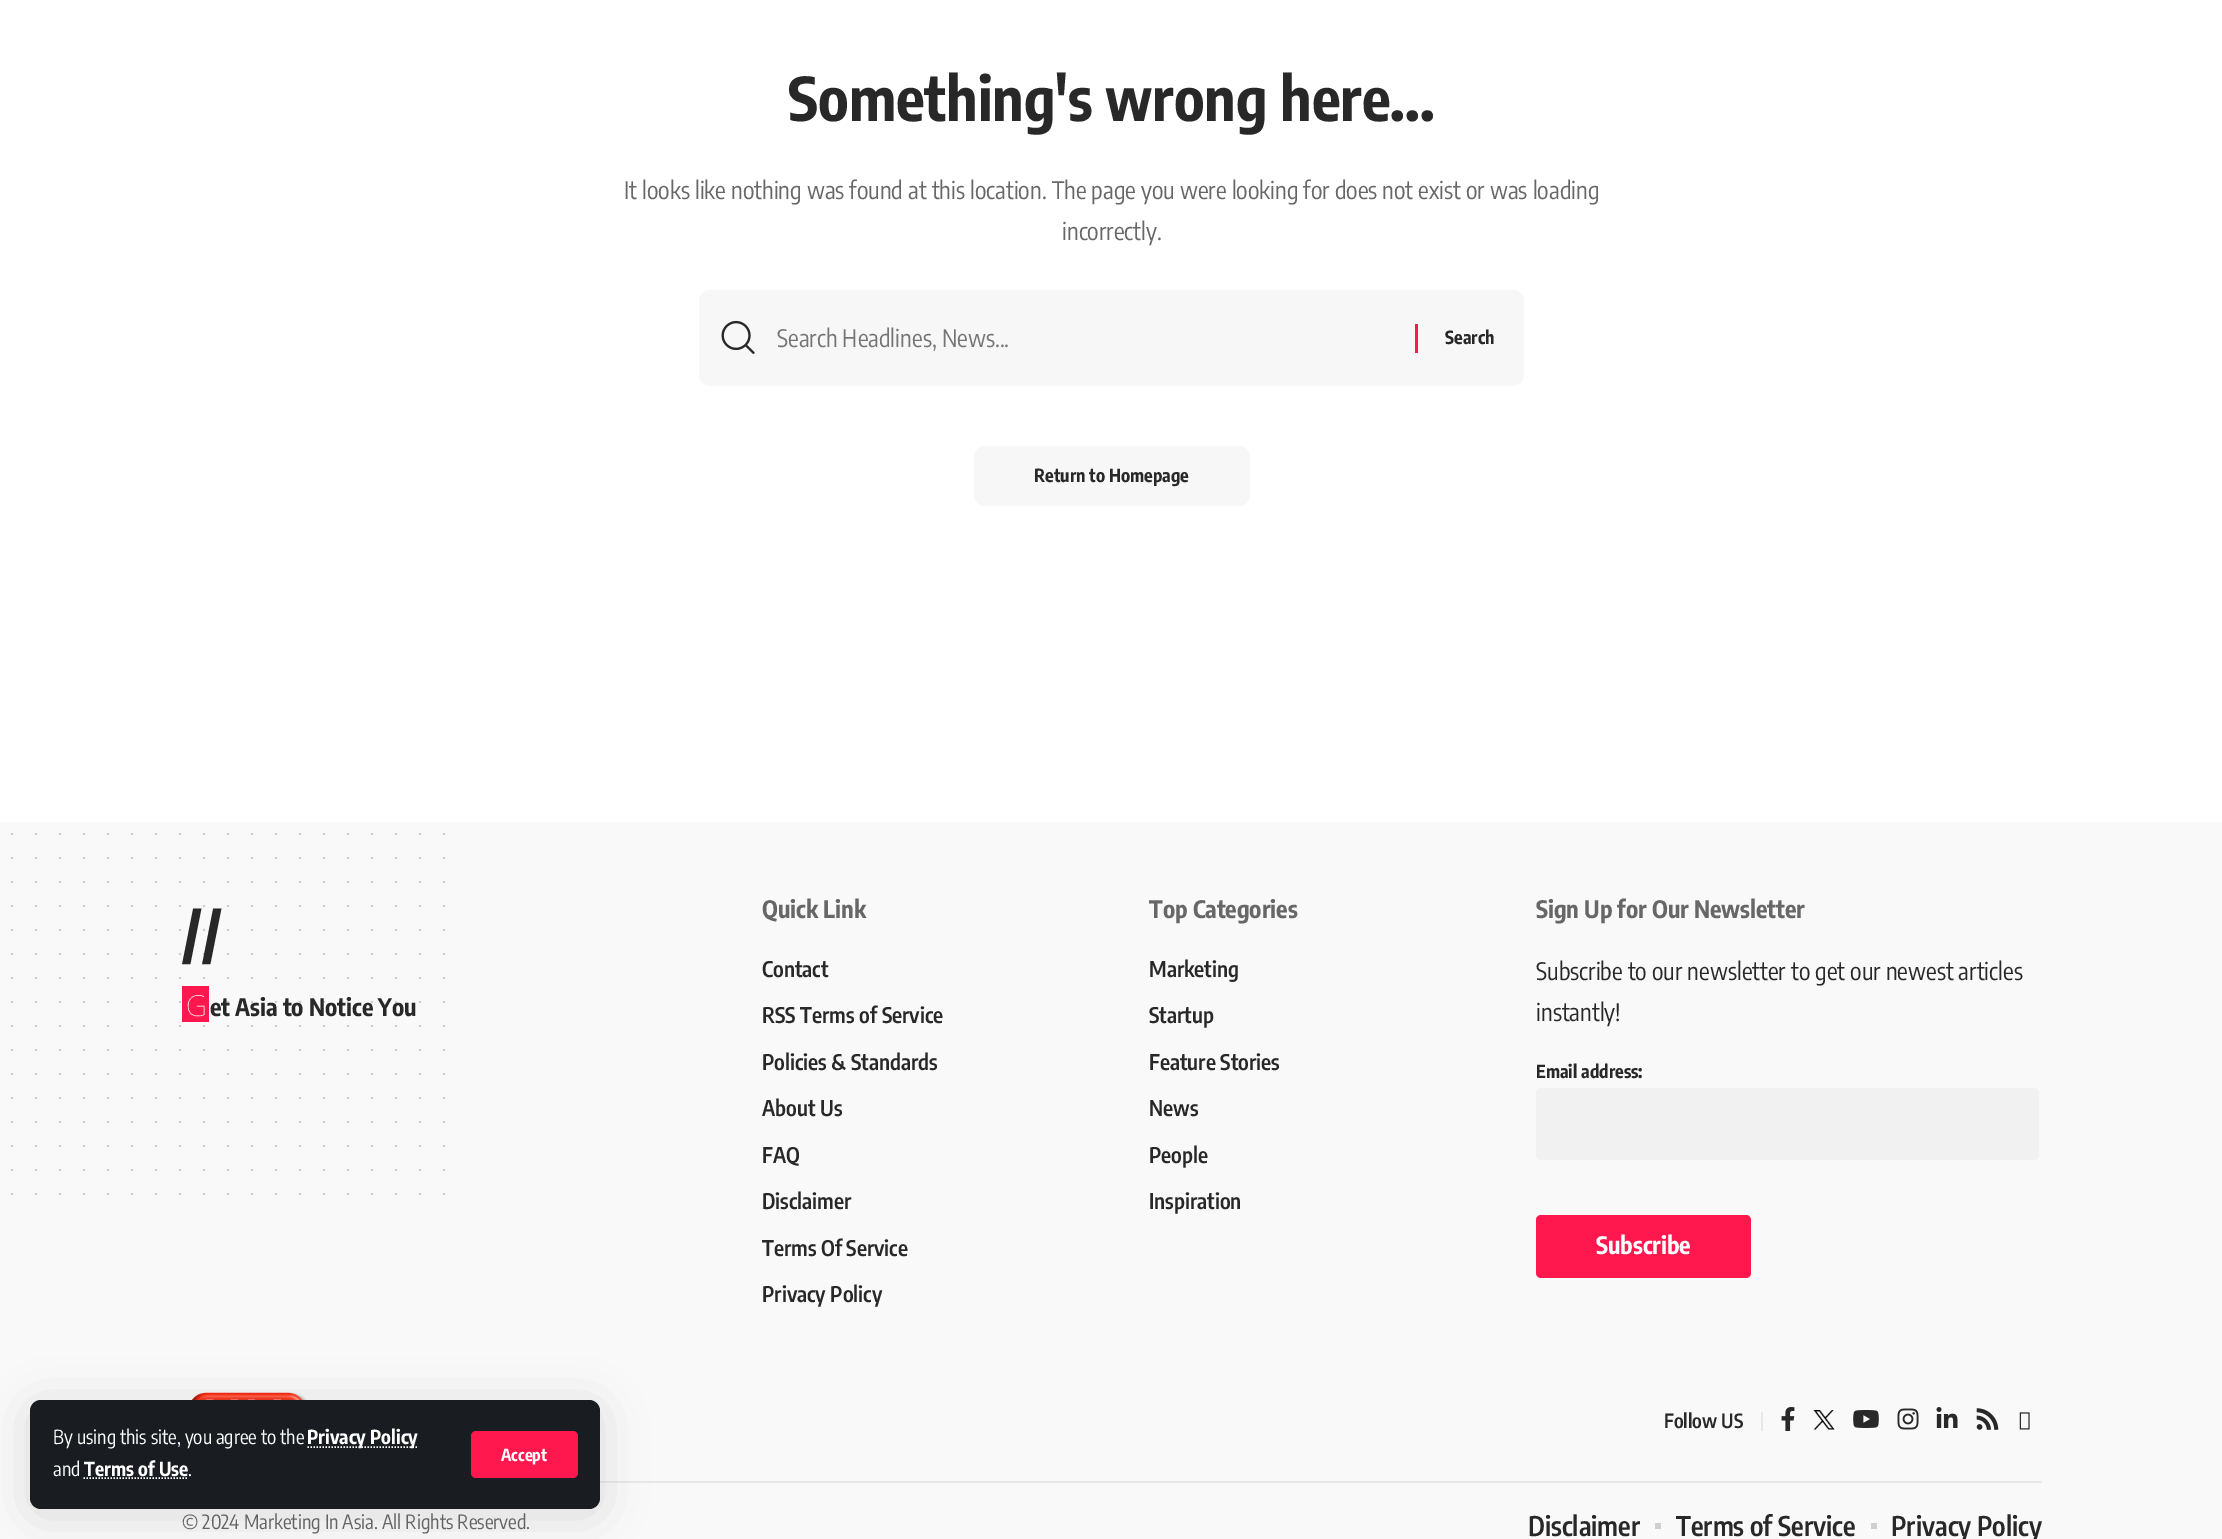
%!PS
<< /PageSize [2222 1539] /PageUsesTransparency true >> setpagedevice
/m/moveto load def
/l/rlineto load def
/f/fill load def
/s/stroke load def
/w/setlinewidth load def
/C { dup -16 bitshift 255 div exch dup -8 bitshift 255 and 255 div exch 255 and 255 div setrgbcolor } def
/F { [ exch dup neg 0 0 3 -1 roll 0 0 ] selectfont } def
/T { moveto show } def
/R { rectfill } def
/A { dup .setfillconstantalpha .setstrokeconstantalpha } def
/Q { 5 dict begin { /r /h /w /y /x } { exch def } forall
  x r add y moveto x w add y 2 copy h add r arct x w add y h add x 1 index r arct
  x y h add x y r arct x y 2 copy exch w add exch r arct closepath end } def
/S { 12 dict begin { /a /b /q /h /w /y /x } { exch def } forall gsave /was 0 def
  9 -2 -9 { dup b mul 4 div /e exch def 1 sub .425 mul 2.718 exch exp 1 add a .99 .min exch div /now exch def
    1 1 now sub 1 was sub div sub A /was now def
    w h .min e 2 mul add 0 gt { x e sub y e sub w e 2 mul add h e 2 mul add
      q e add b .6 mul add w h .min 2 div e add .min 0 .max Q fill } if } for grestore end } def
/I { 5 dict begin { /h /w /y /x /name } { exch def } forall
  gsave x y translate w h scale
  w h 8 [w 0 0 h 0 0] name (r) file false 3 colorimage grestore end } def
0 .pushpdf14devicefilter
0 1539 translate 1 -1 scale
4 setmiterlimit
16#FFFFFF C
0 0 2222 1539 R
/EncodeSansCondensed-Bold 60 F
16#282828 C
(Something's wrong here...) 788 121 T
/EncodeSansCondensed-Regular 24 F
16#676767 C
(It looks like nothing was found at this location. The page you were looking for does not exist or was loading) 624 199 T
(incorrectly.) 1062 240 T
16#F7F7F7 C
699 290 825 96 11 Q f
(1.rgb) 721 320 34 34 I
16#757575 C
(Search Headlines, News...) 777 347 T
16#FF184E C
1415 324 3 29 R
/EncodeSansCondensed-Bold 18 F
16#282828 C
(Search) 1445 344 T
16#F7F7F7 C
974 446 276 60 11 Q f
16#282828 C
(Return to Homepage) 1034 482 T
16#F9F9F9 C
0 822 2222 717 R
16#CFCFCF C
2.2 w
1 setlinecap
[0 24] 0 setdash
12 834 m 432.3 0 l s
12 858 m 432.3 0 l s
12 882 m 432.3 0 l s
12 906 m 432.3 0 l s
12 930 m 432.3 0 l s
12 954 m 432.3 0 l s
12 978 m 432.3 0 l s
12 1002 m 432.3 0 l s
12 1026 m 432.3 0 l s
12 1050 m 432.3 0 l s
12 1074 m 432.3 0 l s
12 1098 m 432.3 0 l s
12 1122 m 432.3 0 l s
12 1146 m 432.3 0 l s
12 1170 m 432.3 0 l s
12 1194 m 432.3 0 l s
/EncodeSansCondensed-Bold 60 F
16#282828 C
(//) 182 957 T
16#FF184E C
182 986 27 36 R
/NotoSans-Thin 29 F
16#FFFFFF C
(G) 186 1016 T
/EncodeSansCondensed-Bold 24 F
16#282828 C
(et Asia to Notice You) 210 1016 T
16#676767 C
(Quick Link) 762 918 T
/EncodeSansCondensed-SemiBold 21.5 F
16#282828 C
(Contact) 762 977 T
(RSS Terms of Service) 762 1023 T
(Policies & Standards) 762 1070 T
(About Us) 762 1116 T
(FAQ) 762 1163 T
(Disclaimer) 762 1209 T
(Terms Of Service) 762 1256 T
(Privacy Policy) 762 1302 T
/EncodeSansCondensed-Bold 24 F
16#676767 C
(Top Categories) 1149 918 T
/EncodeSansCondensed-SemiBold 21.5 F
16#282828 C
(Marketing) 1149 977 T
(Startup) 1149 1023 T
(Feature Stories) 1149 1070 T
(News) 1149 1116 T
(People) 1149 1163 T
(Inspiration) 1149 1209 T
/EncodeSansCondensed-Bold 24 F
16#676767 C
(Sign Up for Our Newsletter) 1536 918 T
/EncodeSansCondensed-Regular 24 F
16#282828 C
(Subscribe to our newsletter to get our newest articles) 1536 980 T
(instantly!) 1536 1021 T
/EncodeSansCondensed-Bold 18 F
(Email address:) 1536 1078 T
16#F1F1F1 C
1536 1088 503 72 5 Q f
16#FF184E C
1536 1215 215 63 5 Q f
/EncodeSansCondensed-Bold 24 F
16#FFFFFF C
(Subscribe) 1596 1254 T
(2.rgb) 191 1392 116 8 I
16#E8E8E8 C
1761 1412 2 19 R
/EncodeSansCondensed-SemiBold 19.5 F
16#282828 C
(Follow US) 1664 1428 T
(3.rgb) 1781 1407 14 24 I
(4.rgb) 1813 1410 22 20 I
(5.rgb) 1853 1410 26 18 I
(6.rgb) 1897 1408 22 22 I
(7.rgb) 1936 1407 22 21 I
(8.rgb) 1976 1408 23 22 I
(9.rgb) 2019 1412 11 18 I
16#E8E8E8 C
600 1481 1442 2 R
/EncodeSansCondensed-Regular 19.5 F
16#676767 C
(© 2024 Marketing In Asia. All Rights Reserved.) 182 1529 T
/EncodeSansCondensed-SemiBold 27 F
16#282828 C
(Disclaimer) 1528 1536 T
16#CFCFCF C
1655 1523 6 6 R
16#282828 C
(Terms of Service) 1676 1536 T
16#CFCFCF C
1871 1523 6 6 R
16#282828 C
(Privacy Policy) 1891 1536 T
16#000000 C
30 1406 570 109 11 22.5 .12 S
16#191C20 C
30 1400 570 109 11 Q f
/EncodeSansCondensed-Regular 19.25 F
16#FFFFFF C
(By using this site, you agree to the) 53 1444 T
1.5 w
0 setlinecap
[1.5 1.5] 0 setdash
307.5 1447 m 110.5 0 l s
/EncodeSansCondensed-Bold 19.25 F
(Privacy Policy) 307 1444 T
/EncodeSansCondensed-Regular 19.25 F
(and) 53 1476 T
/EncodeSansCondensed-Bold 19.25 F
(Terms of Use) 84 1476 T
83.5 1478 m 104 0 l s
/EncodeSansCondensed-Regular 19.25 F
(.) 188 1476 T
16#FF184E C
471 1431 107 47 5 Q f
/EncodeSansCondensed-Bold 16.5 F
16#FFFFFF C
(Accept) 501 1461 T
.poppdf14devicefilter showpage
